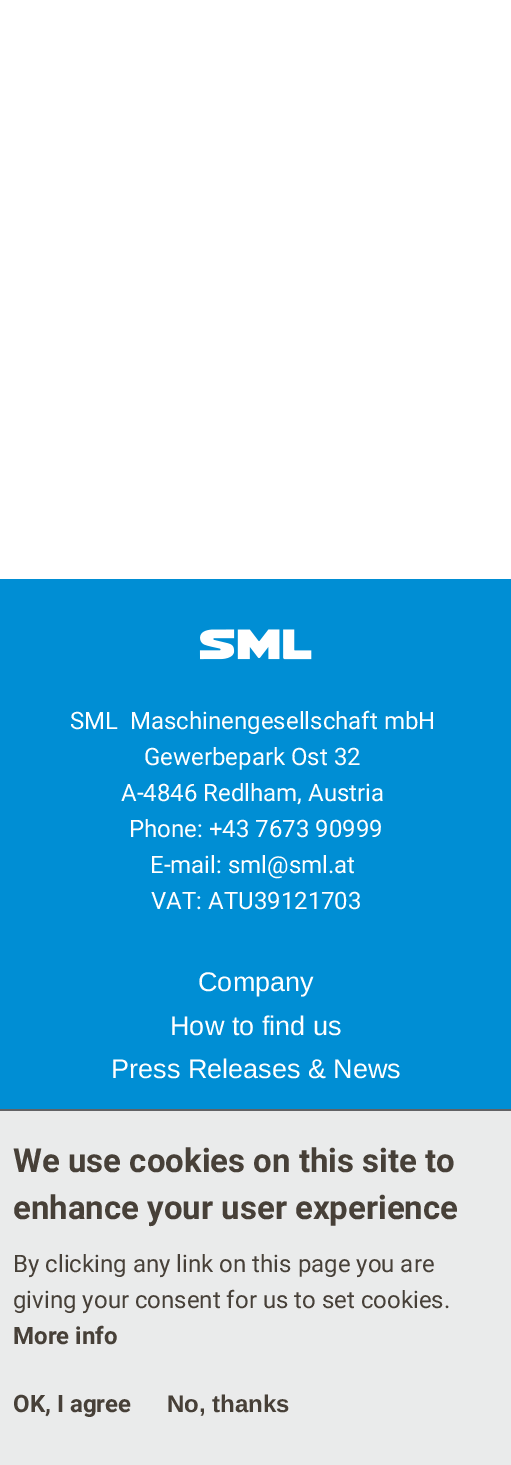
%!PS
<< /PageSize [511 1465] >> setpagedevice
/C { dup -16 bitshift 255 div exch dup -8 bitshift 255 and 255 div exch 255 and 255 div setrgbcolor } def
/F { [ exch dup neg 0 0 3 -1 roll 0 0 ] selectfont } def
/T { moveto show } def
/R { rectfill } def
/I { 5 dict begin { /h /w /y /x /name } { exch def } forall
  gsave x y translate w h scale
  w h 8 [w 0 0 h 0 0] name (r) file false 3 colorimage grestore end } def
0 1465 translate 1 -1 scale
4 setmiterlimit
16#FFFFFF C
0 0 511 1465 R
16#008ED4 C
0 579 511 530 R
(1.rgb) 199 629 113 31 I
/Roboto-Regular 24 F
16#FFFFFF C
(SML  Maschinengesellschaft mbH) 70 729 T
(Gewerbepark Ost 32) 144 765 T
(A-4846 Redlham, Austria) 121 801 T
(Phone: +43 7673 90999) 129 837 T
(E-mail: sml@sml.at) 150 873 T
(VAT: ATU39121703) 151 909 T
/LiberationSans-Regular 27 F
(Company) 198 991 T
(How to find us) 170 1035 T
(Press Releases & News) 111 1078 T
16#EAEBEB C
0 1111 511 354 R
16#626264 C
0 1109 511 2 R
/Roboto-Bold 33 F
16#474038 C
(We use cookies on this site to) 13 1172 T
(enhance your user experience) 13 1219 T
/Roboto-Regular 24 F
(By clicking any link on this page you are) 13 1272 T
(giving your consent for us to set cookies.) 13 1308 T
/Roboto-Bold 24 F
(More info) 13 1344 T
(OK, I agree) 13 1412 T
/LiberationSans-Bold 24 F
(No, thanks) 167 1412 T
showpage
